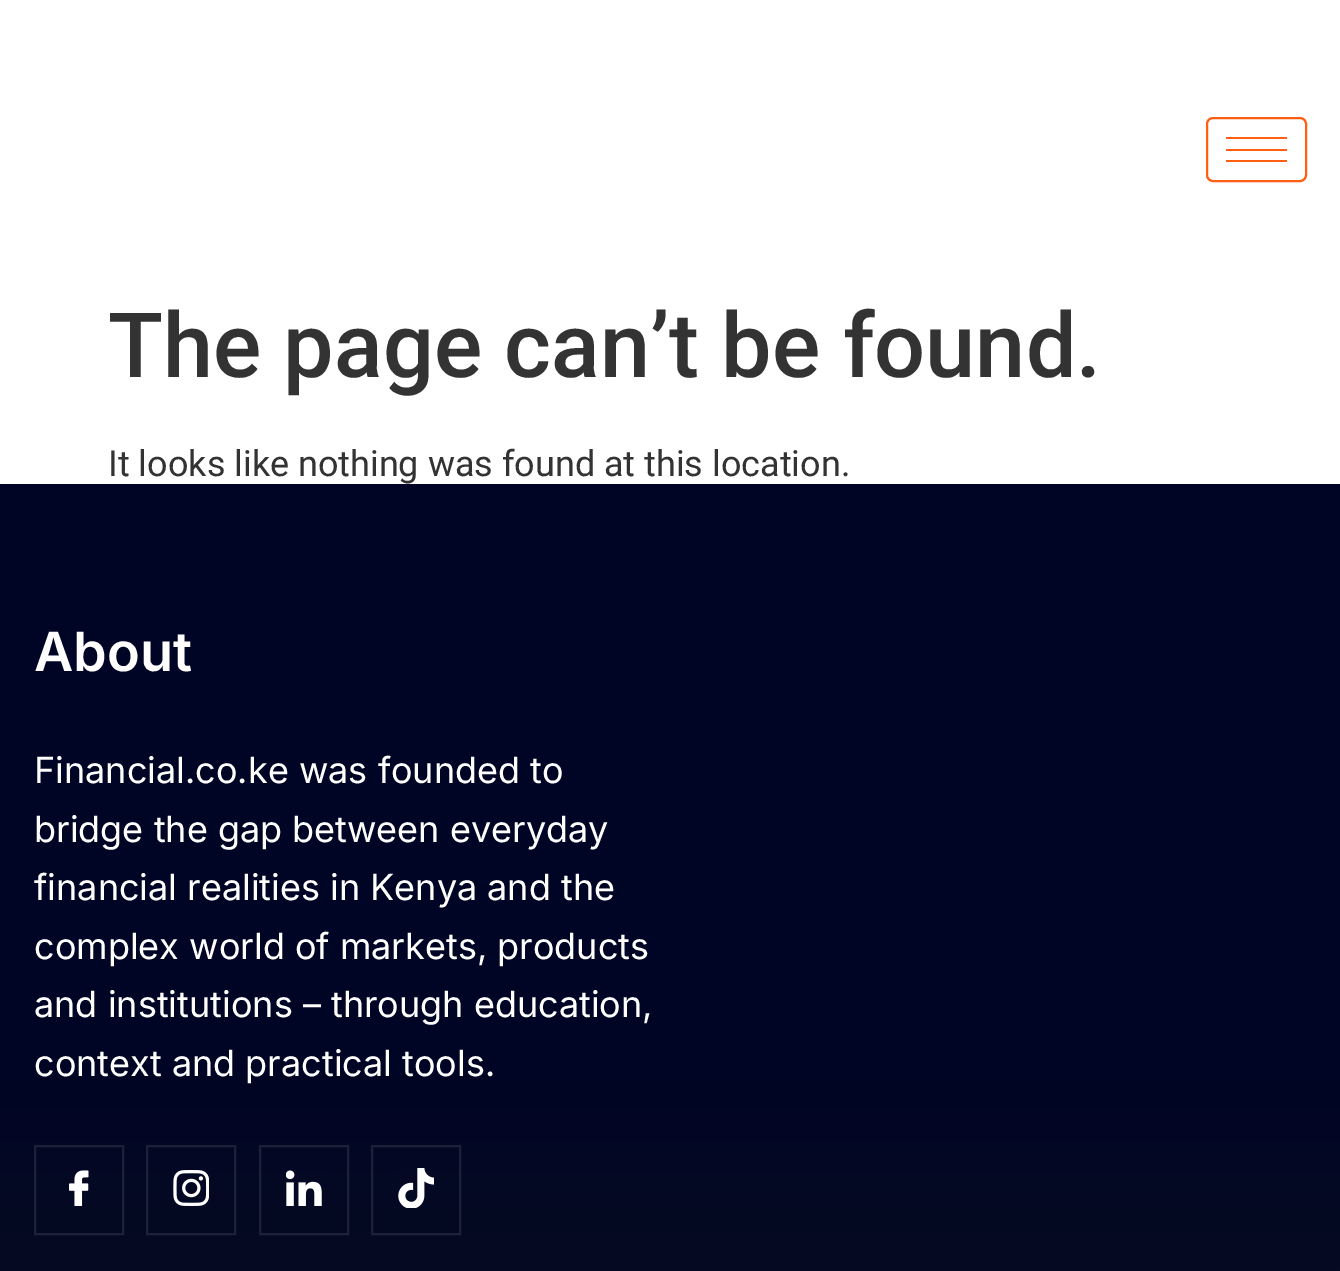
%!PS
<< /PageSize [1340 1271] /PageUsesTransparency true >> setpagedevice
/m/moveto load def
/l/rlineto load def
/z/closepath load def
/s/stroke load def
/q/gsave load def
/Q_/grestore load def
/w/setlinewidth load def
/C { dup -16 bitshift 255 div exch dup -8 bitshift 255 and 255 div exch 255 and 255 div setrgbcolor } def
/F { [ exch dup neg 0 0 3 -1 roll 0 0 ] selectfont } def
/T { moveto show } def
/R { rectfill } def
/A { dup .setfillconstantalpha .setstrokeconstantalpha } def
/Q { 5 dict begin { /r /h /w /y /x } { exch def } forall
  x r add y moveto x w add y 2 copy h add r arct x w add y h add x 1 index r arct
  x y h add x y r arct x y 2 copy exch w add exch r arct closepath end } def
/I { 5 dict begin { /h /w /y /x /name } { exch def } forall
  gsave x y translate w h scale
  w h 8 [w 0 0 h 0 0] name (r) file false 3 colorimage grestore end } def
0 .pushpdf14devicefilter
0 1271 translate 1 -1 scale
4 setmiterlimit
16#FFFFFF C
0 0 1340 1271 R
16#FF5E13 C
2 w
1207 118 99 63 6 Q s
1226 137 61 2 R
1226 149 61 2 R
1226 160 61 2 R
/Roboto-Medium 90 F
16#333333 C
(The page can’t be found.) 108 377 T
/Roboto-Regular 36 F
(It looks like nothing was found at this location.) 108 476 T
q 0 484 m 1340 0 l 0 787 l -1340 0 l z clip newpath
<< /ShadingType 2 /ColorSpace /DeviceRGB /Coords [670 484 671 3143] /Extend [true true] /Function << /FunctionType 3 /Domain [0 1] /Functions [<< /FunctionType 2 /Domain [0 1] /C0 [.004 .02 .145] /C1 [.004 .02 .145] /N 1 >> << /FunctionType 2 /Domain [0 1] /C0 [.004 .02 .145] /C1 [.133 .18 .067] /N 1 >> << /FunctionType 2 /Domain [0 1] /C0 [.133 .18 .067] /C1 [.133 .18 .067] /N 1 >>] /Bounds [.22 .74] /Encode [0 1 0 1 0 1] >> >> shfill Q_
/Inter-SemiBold 54 F
16#FFFFFF C
(About) 34 671 T
/Inter-Regular 36 F
(Financial.co.ke was founded to) 34 783 T
(bridge the gap between everyday) 34 842 T
(financial realities in Kenya and the) 34 900 T
(complex world of markets, products) 34 959 T
(and institutions – through education,) 34 1017 T
(context and practical tools.) 34 1076 T
0.1 A
35 1146 88 88 rectstroke
1 A
(1.rgb) 69 1170 20 36 I
0.1 A
147 1146 88 88 rectstroke
1 A
(2.rgb) 173 1170 36 36 I
0.1 A
260 1146 88 88 rectstroke
1 A
(3.rgb) 286 1170 36 36 I
0.1 A
372 1146 88 88 rectstroke
1 A
(4.rgb) 398 1168 36 40 I
.poppdf14devicefilter showpage
